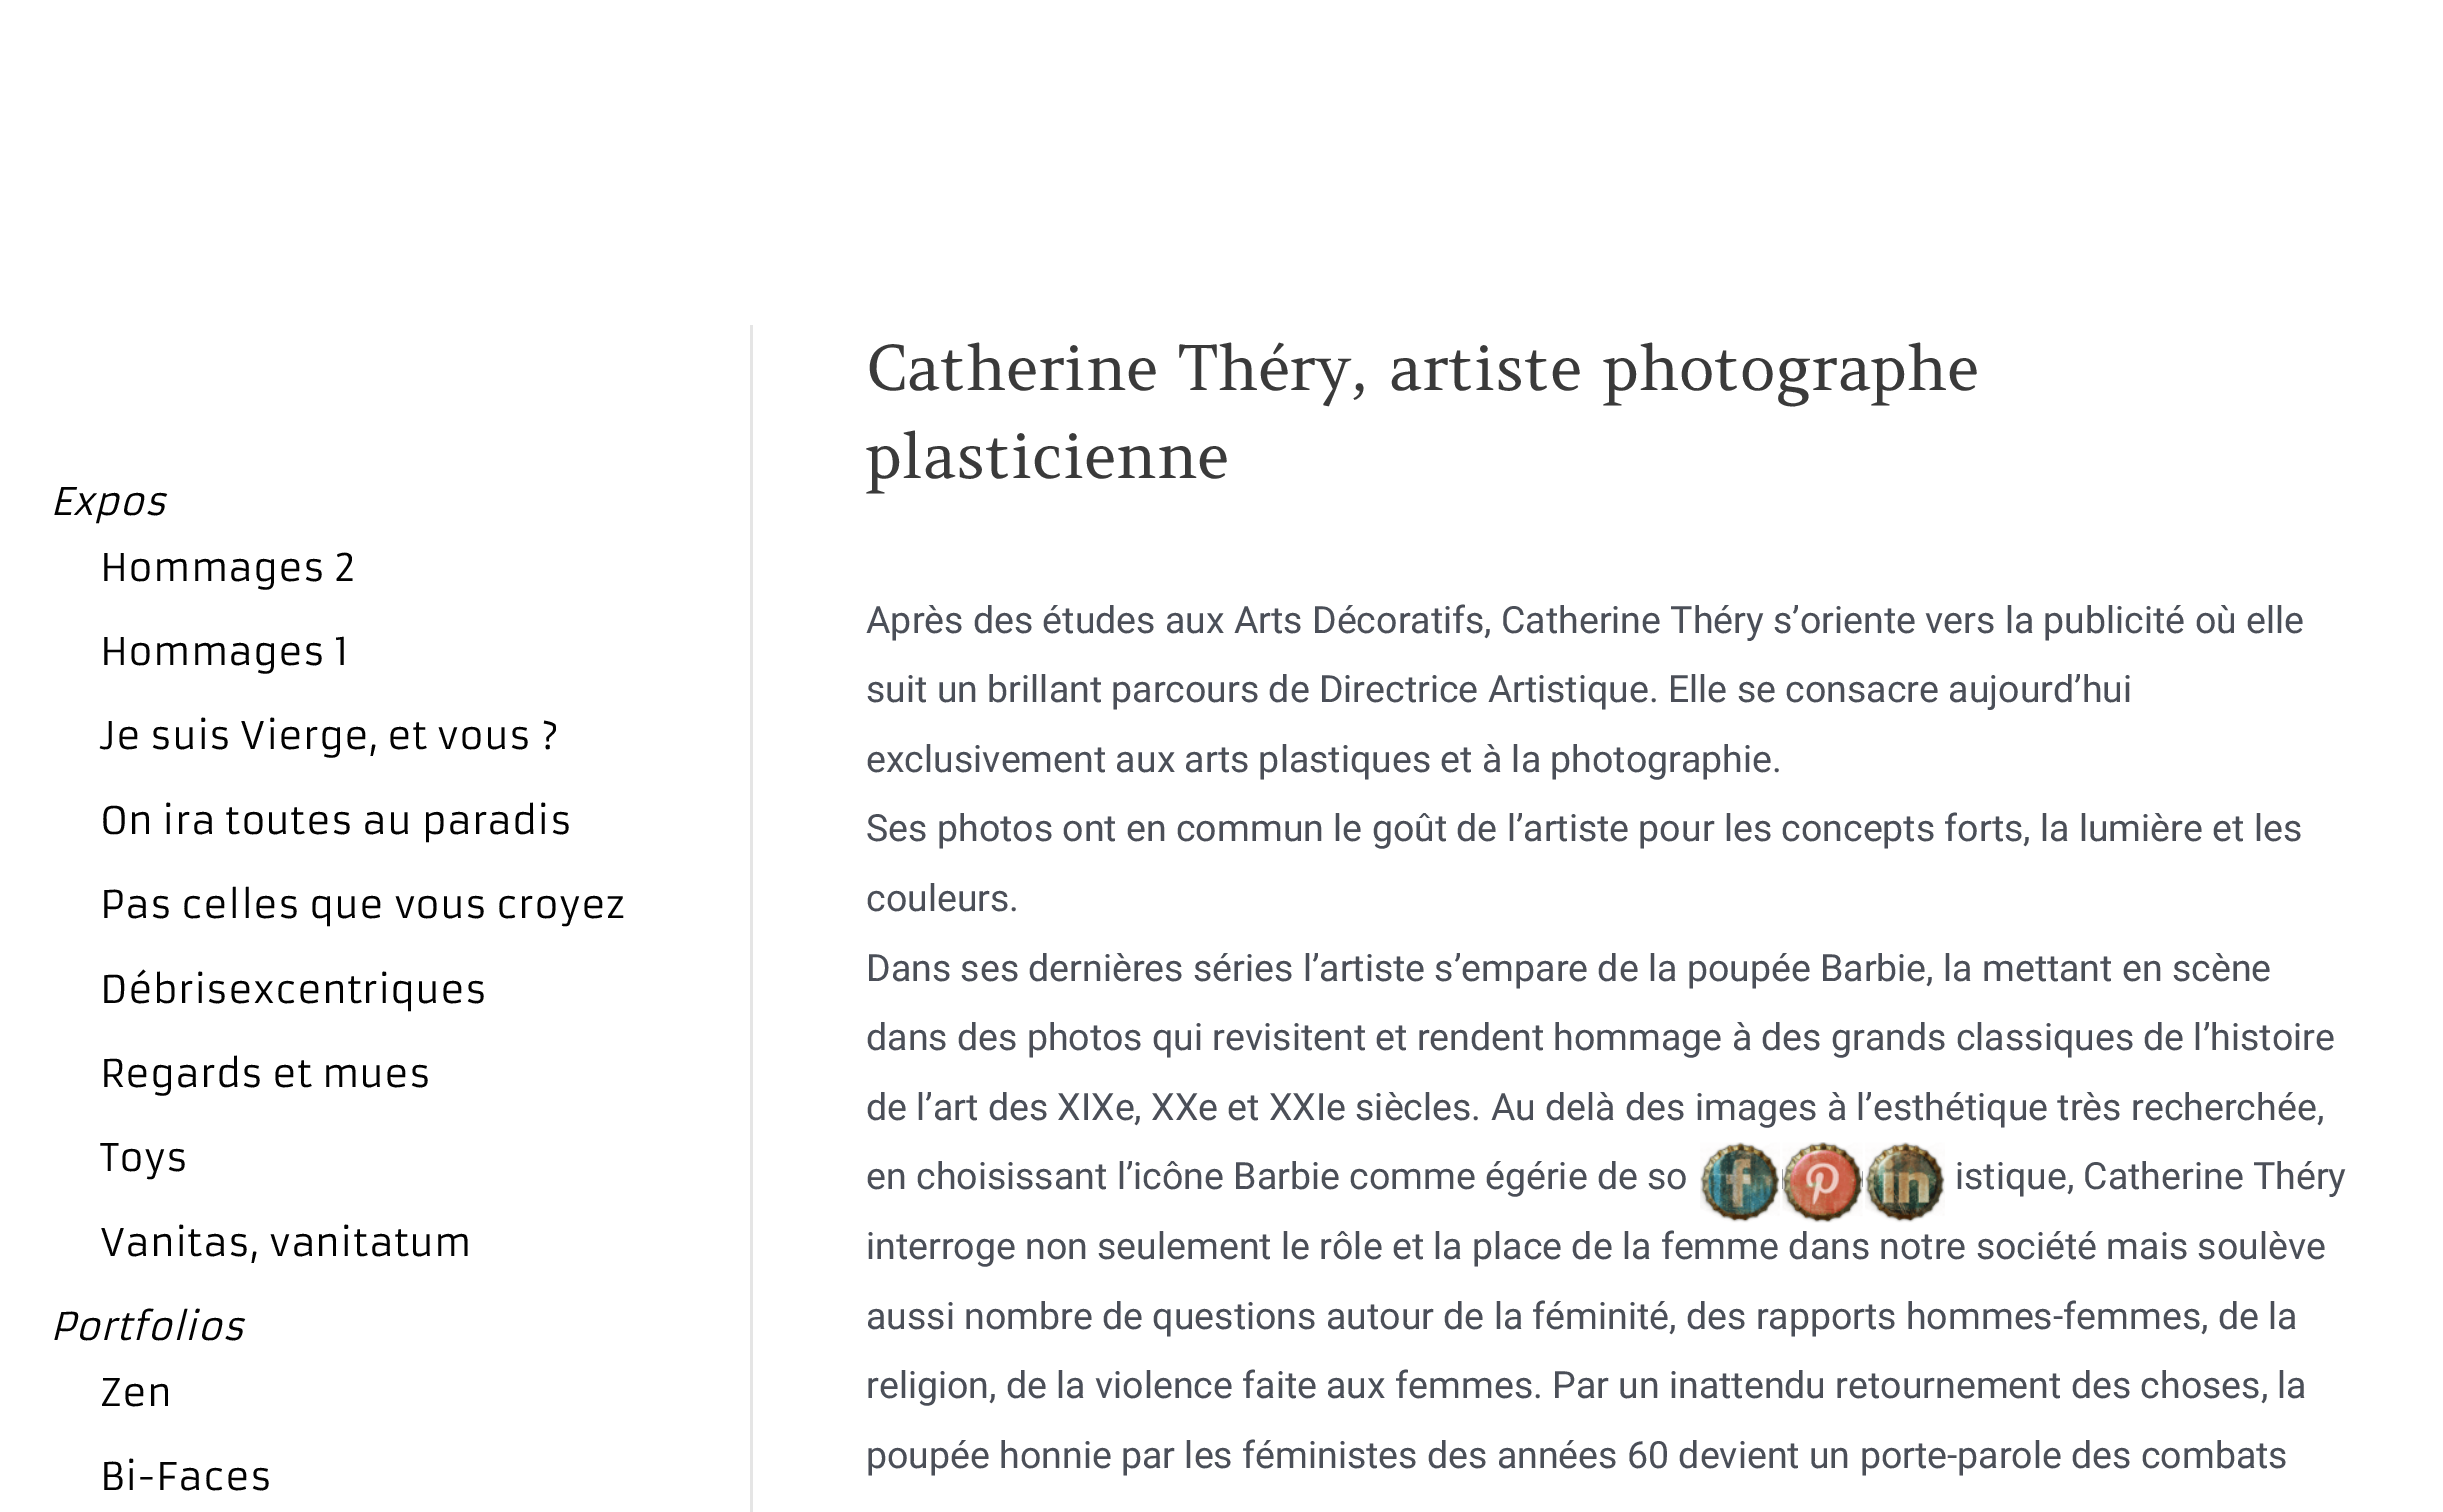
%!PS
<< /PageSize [2443 1512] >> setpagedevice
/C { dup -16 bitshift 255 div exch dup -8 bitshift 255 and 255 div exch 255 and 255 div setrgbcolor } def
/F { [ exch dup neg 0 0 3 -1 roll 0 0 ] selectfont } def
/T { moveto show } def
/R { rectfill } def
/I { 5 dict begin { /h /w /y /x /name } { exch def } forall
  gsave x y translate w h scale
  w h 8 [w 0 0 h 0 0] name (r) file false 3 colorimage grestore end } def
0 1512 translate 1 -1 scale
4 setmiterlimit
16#FFFFFF C
0 0 2443 1512 R
/Armata-Italic 37.5 F
16#020202 C
(Expos) 50 515 T
/Armata-Regular 37.5 F
(Hommages 2) 100 581 T
(Hommages 1) 100 665 T
(Je suis Vierge, et vous ?) 100 749 T
(On ira toutes au paradis) 100 834 T
(Pas celles que vous croyez) 100 918 T
(Débrisexcentriques) 100 1003 T
(Regards et mues) 100 1087 T
(Toys) 100 1171 T
(Vanitas, vanitatum) 100 1256 T
/Armata-Italic 37.5 F
(Portfolios) 50 1340 T
/Armata-Regular 37.5 F
(Zen) 100 1406 T
(Bi-Faces) 100 1490 T
16#E5E5E5 C
750 325 3 1187 R
/Amethysta-Regular 62.5 F
16#3A3A3A C
(Catherine Théry, artiste photographe) 866 390 T
(plasticienne) 866 478 T
/Roboto-Regular 37.5 F
16#4B4F58 C
(Après des études aux Arts Décoratifs, Catherine Théry s’oriente vers la publicité où elle) 866 633 T
(suit un brillant parcours de Directrice Artistique. Elle se consacre aujourd’hui) 866 702 T
(exclusivement aux arts plastiques et à la photographie.) 866 772 T
(Ses photos ont en commun le goût de l’artiste pour les concepts forts, la lumière et les) 866 841 T
(couleurs.) 866 911 T
(Dans ses dernières séries l’artiste s’empare de la poupée Barbie, la mettant en scène) 866 981 T
(dans des photos qui revisitent et rendent hommage à des grands classiques de l’histoire) 866 1050 T
(de l’art des XIXe, XXe et XXIe siècles. Au delà des images à l’esthétique très recherchée,) 866 1120 T
(en choisissant l’icône Barbie comme égérie de so) 866 1189 T
(istique, Catherine Théry) 1955 1189 T
(interroge non seulement le rôle et la place de la femme dans notre société mais soulève) 866 1259 T
(aussi nombre de questions autour de la féminité, des rapports hommes-femmes, de la) 866 1329 T
(religion, de la violence faite aux femmes. Par un inattendu retournement des choses, la) 866 1398 T
(poupée honnie par les féministes des années 60 devient un porte-parole des combats) 866 1468 T
(1.rgb) 1700 1142 80 81 I
(2.rgb) 1782 1142 81 81 I
(3.rgb) 1865 1142 80 81 I
showpage
